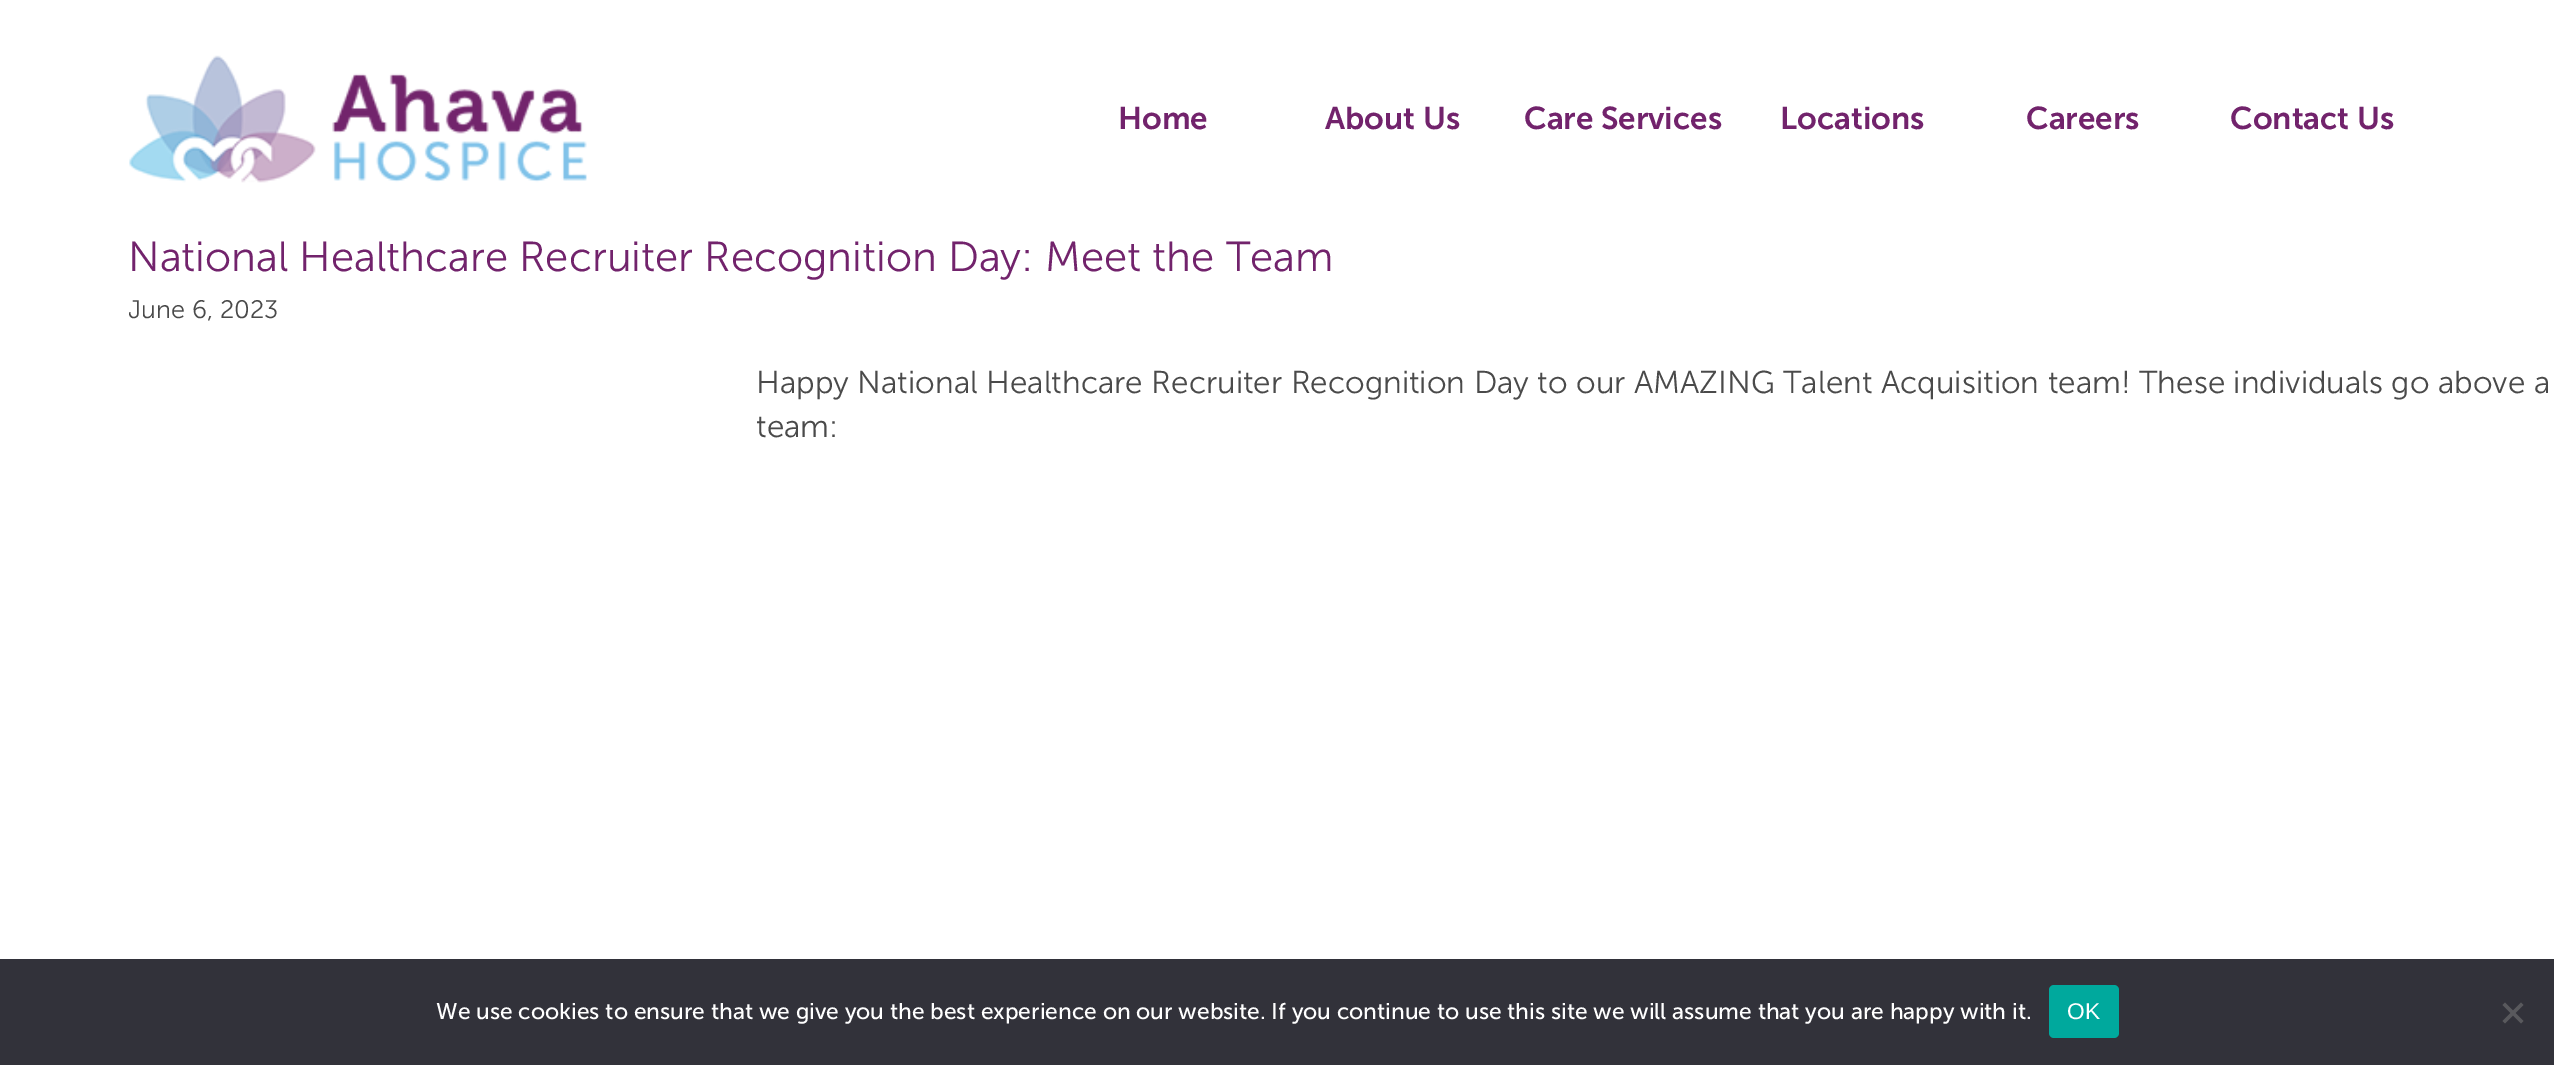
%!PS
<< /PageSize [2554 1065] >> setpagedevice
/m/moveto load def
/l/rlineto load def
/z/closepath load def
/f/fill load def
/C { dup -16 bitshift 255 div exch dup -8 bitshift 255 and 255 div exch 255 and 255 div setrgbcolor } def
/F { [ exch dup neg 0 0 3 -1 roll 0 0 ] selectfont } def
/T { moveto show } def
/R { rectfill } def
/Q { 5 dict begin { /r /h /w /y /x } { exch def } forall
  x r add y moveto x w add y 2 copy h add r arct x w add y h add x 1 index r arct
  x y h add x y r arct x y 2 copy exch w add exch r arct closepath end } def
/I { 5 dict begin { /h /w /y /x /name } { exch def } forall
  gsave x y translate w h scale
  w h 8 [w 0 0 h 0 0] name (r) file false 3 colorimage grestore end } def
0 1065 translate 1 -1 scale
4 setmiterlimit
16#FFFFFF C
0 0 2554 1065 R
(1.rgb) 129 55 458 128 I
/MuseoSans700-SemiBold 31.5 F
16#72236C C
(Home) 1118 129 T
(About Us) 1325 129 T
(Care Services) 1524 129 T
(Locations) 1780 129 T
(Careers) 2026 129 T
(Contact Us) 2230 129 T
/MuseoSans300-Light 41.9 F
(National Healthcare Recruiter Recognition Day: Meet the Team) 128 271 T
/MuseoSans300-Light 25.25 F
16#4A4A4A C
(June 6, 2023) 128 318 T
/MuseoSans300-Light 31.5 F
(Happy National Healthcare Recruiter Recognition Day to our AMAZING Talent Acquisition team! These individuals go above a) 756 393 T
(team:) 756 437 T
16#32323A C
0 959 2554 106 R
/MuseoSans-Regular 22.75 F
16#FFFFFF C
(We use cookies to ensure that we give you the best experience on our website. If you continue to use this site we will assume that you are happy with it.) 436 1019 T
16#00A99D C
2049 985 70 53 5 Q f
/LiberationSans-Regular 22.75 F
16#FFFFFF C
(OK) 2067 1019 T
16#59595D C
2521 1002.5 m 2.5 2.5 l -18.5 18.5 l -2.5 -2.5 l z f
2502.5 1005 m 2.5 -2.5 l 18.5 18.5 l -2.5 2.5 l z f
showpage
